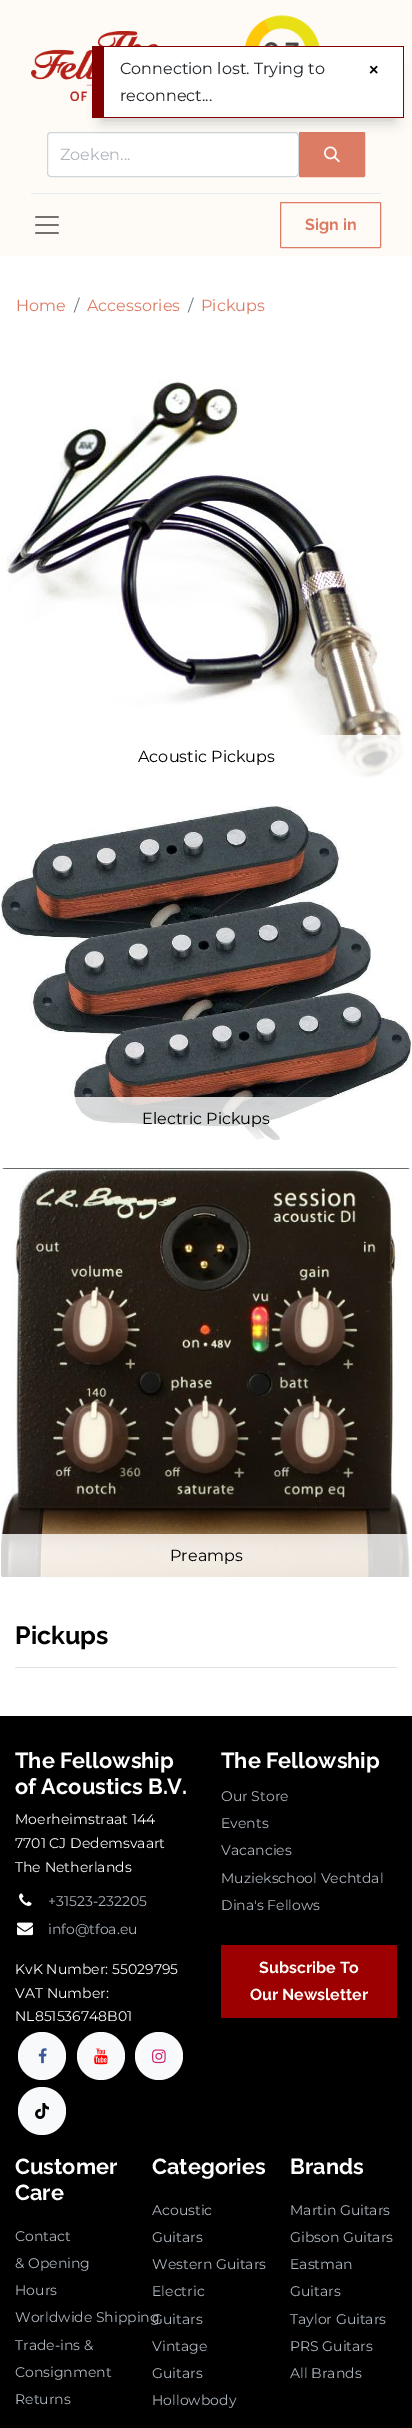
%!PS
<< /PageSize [412 2428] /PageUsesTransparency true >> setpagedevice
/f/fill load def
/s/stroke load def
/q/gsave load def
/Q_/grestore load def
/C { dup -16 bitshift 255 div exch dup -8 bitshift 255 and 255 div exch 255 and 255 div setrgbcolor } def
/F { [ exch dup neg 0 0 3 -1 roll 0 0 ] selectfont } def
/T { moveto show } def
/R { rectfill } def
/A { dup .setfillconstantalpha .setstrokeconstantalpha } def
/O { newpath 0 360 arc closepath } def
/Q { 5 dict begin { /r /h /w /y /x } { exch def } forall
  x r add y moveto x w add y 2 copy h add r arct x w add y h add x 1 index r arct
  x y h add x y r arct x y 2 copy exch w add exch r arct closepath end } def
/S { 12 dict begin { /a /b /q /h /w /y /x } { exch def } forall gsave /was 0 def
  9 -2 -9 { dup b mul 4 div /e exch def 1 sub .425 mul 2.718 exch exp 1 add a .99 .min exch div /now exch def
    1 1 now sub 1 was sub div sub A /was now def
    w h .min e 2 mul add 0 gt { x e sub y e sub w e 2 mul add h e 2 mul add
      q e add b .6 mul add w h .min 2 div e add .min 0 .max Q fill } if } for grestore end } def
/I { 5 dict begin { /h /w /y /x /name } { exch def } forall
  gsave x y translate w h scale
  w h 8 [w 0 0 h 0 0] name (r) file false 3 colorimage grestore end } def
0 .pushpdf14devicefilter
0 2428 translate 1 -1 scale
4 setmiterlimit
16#FFFFFF C
0 0 412 2428 R
16#FEFBF6 C
0 0 412 256 R
(1.rgb) 31 31 127 70 I
16#FFFFFF C
47.5 132.5 251 44 3.5 Q q f Q_
16#CED4DA C
s
16#DC7C64 C
299.5 132.5 65 44 1 Q q f Q_
s
16#000000 C
102 68 292 52 0 7 .25 S
16#FFFFFF C
104 47 299 70 R
16#820000 C
104 46 300 1 R
403 46 1 72 R
104 117 300 1 R
92 46 12 72 R
/Montserrat-Regular 16 F
16#212529 C
(Connection lost. Trying to) 120 74 T
(reconnect...) 120 101 T
/LiberationSans-Bold 16 F
16#000000 C
(×) 369 75 T
(2.rgb) 245 15 75 31 I
/Montserrat-Regular 16 F
16#ADB5BD C
(Zoeken...) 60 160 T
(3.rgb) 324 146 16 17 I
16#E9ECEF C
31 193 350 1 R
(4.rgb) 35 216 24 18 I
16#DC7C64 C
280.5 202.5 100 45 1 Q s
/Raleway-Bold 16 F
(Sign in) 305 230 T
/Montserrat-Regular 16 F
(Home) 16 311 T
16#6C757D C
(/) 74 311 T
16#DC7C64 C
(Accessories) 87 311 T
16#6C757D C
(/) 188 311 T
16#DC7C64 C
(Pickups) 201 311 T
(5.rgb) 6 379 400 399 I
0.8 A
16#FFFFFF C
318 735 88 43 R
1 A
16#000000 C
(Acoustic Pickups) 138 762 T
(6.rgb) 1 806 410 334 I
0.8 A
16#FFFFFF C
72 1097 265 43 R
1 A
16#000000 C
(Electric Pickups) 142 1124 T
(7.rgb) 1 1168 410 409 I
0.8 A
16#FFFFFF C
1 1534 410 43 R
1 A
16#000000 C
(Preamps) 170 1561 T
16#DEE2E6 C
15 1667 382 1 R
/Raleway-Bold 25 F
16#000000 C
(Pickups) 15 1644 T
0 1716 412 712 R
/Raleway-Bold 21.75 F
16#FFFFFF C
(The Fellowship) 15 1768 T
(of Acoustics B.V.) 15 1794 T
/Montserrat-Regular 14 F
(Moerheimstraat 144) 15 1824 T
(7701 CJ Dedemsvaart) 15 1848 T
(The Netherlands) 15 1872 T
(8.rgb) 19 1893 13 13 I
16#ADB5BD C
(+31523-232205) 48 1906 T
(9.rgb) 17 1922 16 14 I
(info@tfoa.eu) 48 1934 T
16#FFFFFF C
(KvK Number: 55029795) 15 1974 T
(VAT Number:) 15 1998 T
(NL851536748B01) 15 2021 T
16#F8F9FA C
42 2056 24 O f
(10.rgb) 38 2048 9 16 I
101 2056 24 O f
(11.rgb) 94 2048 14 17 I
159 2056 24 O f
(12.rgb) 152 2049 14 15 I
42 2111 24 O f
(13.rgb) 35 2103 14 16 I
/Raleway-Bold 21.75 F
16#FFFFFF C
(The Fellowship) 221 1768 T
/Montserrat-Regular 14 F
16#ADB5BD C
(Our Store) 221 1801 T
(Events) 221 1828 T
(Vacancies) 221 1855 T
(Muziekschool Vechtdal) 221 1883 T
(Dina's Fellows) 221 1910 T
16#9C0000 C
221 1945 176 73 1.5 Q f
/Raleway-Bold 16 F
16#FEFBF6 C
(Subscribe To) 259 1973 T
(Our Newsletter) 250 2000 T
/Raleway-Bold 21.75 F
16#FFFFFF C
(Customer) 15 2174 T
(Care) 15 2200 T
/Montserrat-Regular 14 F
16#ADB5BD C
(Contact) 15 2241 T
(& Opening) 15 2268 T
(Hours) 15 2295 T
(Worldwide Shipping) 15 2322 T
(Trade-ins &) 15 2350 T
(Consignment) 15 2377 T
(Returns) 15 2404 T
/Raleway-Bold 21.75 F
16#FFFFFF C
(Categories) 152 2174 T
/Montserrat-Regular 14 F
16#ADB5BD C
(Acoustic) 152 2215 T
(Guitars) 152 2242 T
(Western Guitars) 152 2269 T
(Electric) 152 2296 T
(Guitars) 152 2324 T
(Vintage) 152 2351 T
(Guitars) 152 2378 T
(Hollowbody) 152 2405 T
/Raleway-Bold 21.75 F
16#FFFFFF C
(Brands) 290 2174 T
/Montserrat-Regular 14 F
16#ADB5BD C
(Martin Guitars) 290 2215 T
(Gibson Guitars) 290 2242 T
(Eastman) 290 2269 T
(Guitars) 290 2296 T
(Taylor Guitars) 290 2324 T
(PRS Guitars) 290 2351 T
(All Brands) 290 2378 T
.poppdf14devicefilter showpage
